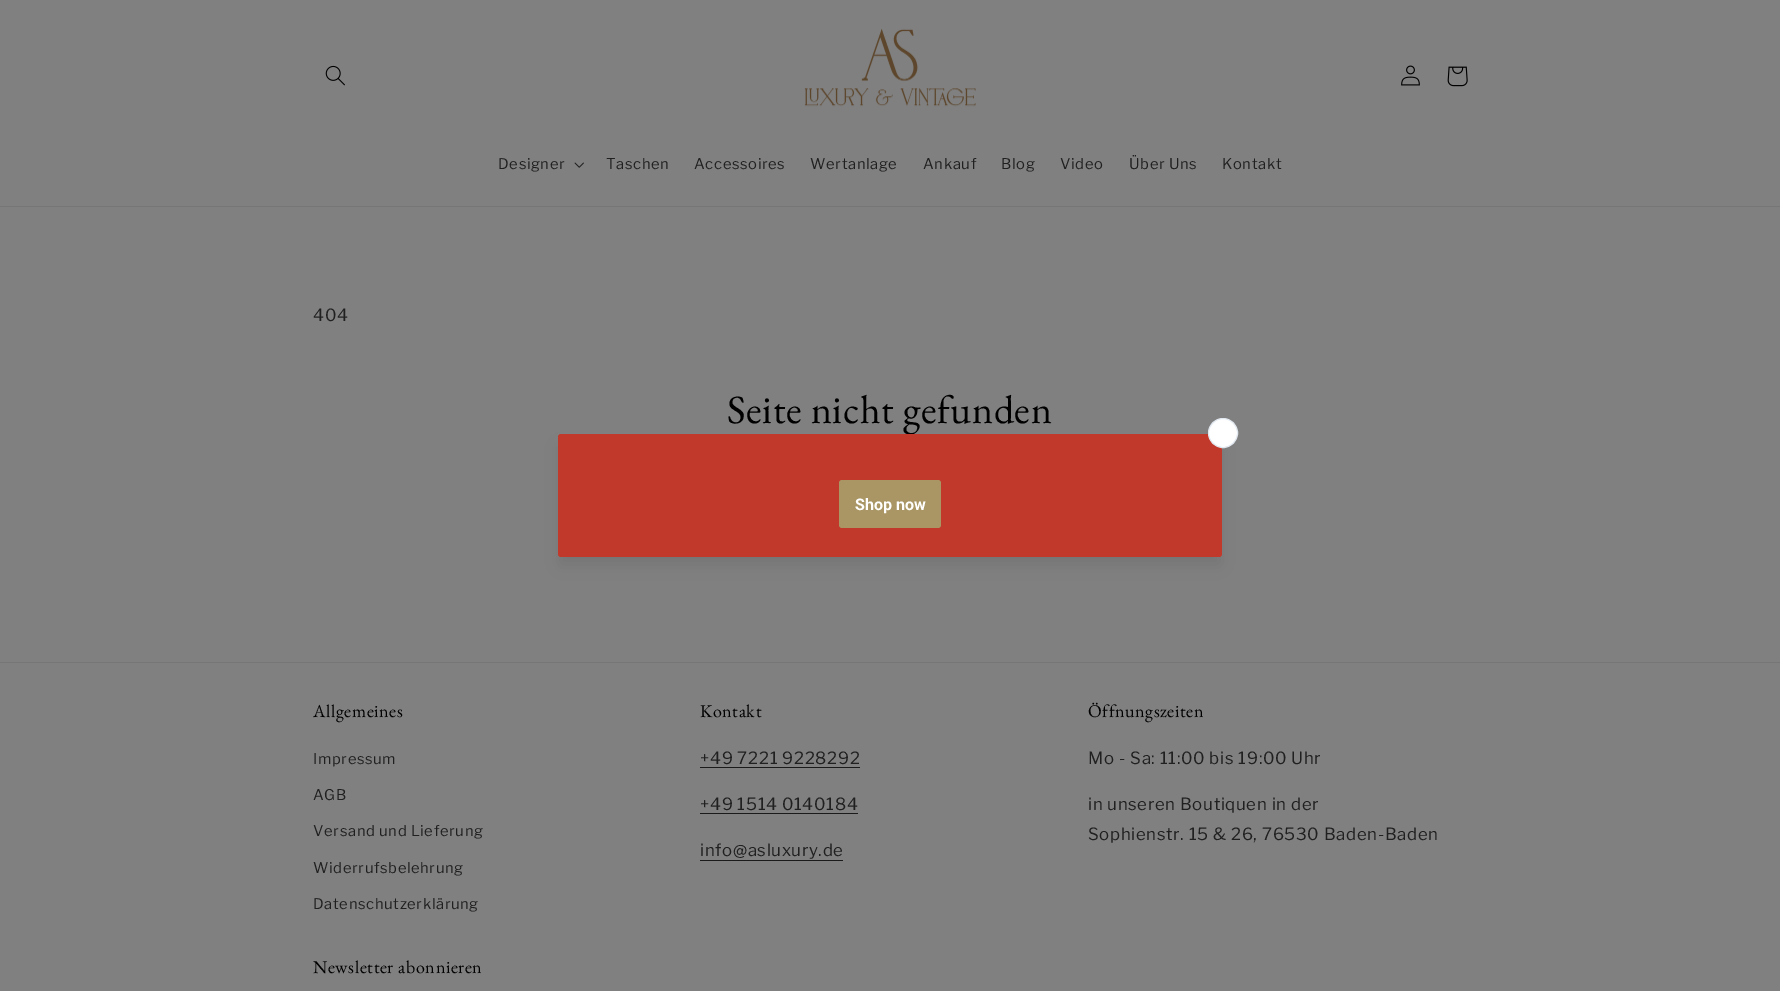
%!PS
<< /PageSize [1780 991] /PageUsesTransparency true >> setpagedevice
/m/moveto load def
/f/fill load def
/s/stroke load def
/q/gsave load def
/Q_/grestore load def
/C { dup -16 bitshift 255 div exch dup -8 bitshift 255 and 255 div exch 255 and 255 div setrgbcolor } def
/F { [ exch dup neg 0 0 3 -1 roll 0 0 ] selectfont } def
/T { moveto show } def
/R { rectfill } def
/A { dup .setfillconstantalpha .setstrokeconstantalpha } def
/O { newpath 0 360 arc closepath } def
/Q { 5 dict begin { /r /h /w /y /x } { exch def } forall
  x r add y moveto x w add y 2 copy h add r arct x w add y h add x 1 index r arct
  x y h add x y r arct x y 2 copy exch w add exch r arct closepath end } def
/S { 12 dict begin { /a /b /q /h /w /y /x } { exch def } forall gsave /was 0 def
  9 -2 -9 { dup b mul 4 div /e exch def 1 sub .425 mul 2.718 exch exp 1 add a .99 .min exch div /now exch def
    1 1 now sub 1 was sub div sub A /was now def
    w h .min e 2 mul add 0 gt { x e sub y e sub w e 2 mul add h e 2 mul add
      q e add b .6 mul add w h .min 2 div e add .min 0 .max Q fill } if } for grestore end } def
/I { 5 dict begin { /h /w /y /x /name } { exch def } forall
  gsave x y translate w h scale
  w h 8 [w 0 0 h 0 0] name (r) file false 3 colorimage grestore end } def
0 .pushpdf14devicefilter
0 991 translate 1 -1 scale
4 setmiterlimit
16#808080 C
0 0 1780 991 R
16#767676 C
0 206 1780 1 R
(1.rgb) 325 65 20 21 I
(2.rgb) 804 28 172 79 I
(3.rgb) 1401 65 19 21 I
(4.rgb) 1447 66 21 21 I
/LibreFranklin-Regular 14.75 F
16#202020 C
498 169 m .65 0 (Designer) ashow
(5.rgb) 574 162 10 6 I
606 169 m .65 0 (Taschen) ashow
694 169 m .65 0 (Accessoires) ashow
810 169 m .65 0 (Wertanlage) ashow
923 169 m .65 0 (Ankauf) ashow
1001 169 m .65 0 (Blog) ashow
1060 169 m .65 0 (Video) ashow
1129 169 m .65 0 (Über Uns) ashow
1222 169 m .65 0 (Kontakt) ashow
/LibreFranklin-Regular 16.8 F
313 321 m .65 0 (404) ashow
/EBGaramond-Regular 40 F
16#000000 C
727 423 m .6 0 (Seite nicht gefunden) ashow
561 447 658 117 0 7.5 .1 S
16#C0392B C
558 434 664 123 3 Q f
16#FFFFFF C
1223 433 14.5 O q f Q_
16#E2E8F0 C
s
16#A99664 C
839 480 102 48 3 Q f
/Roboto-Bold 16 F
16#FFFFFF C
(Shop now) 855 510 T
16#767676 C
0 662 1780 1 R
/EBGaramond-Regular 18 F
16#000000 C
313 717 m .6 0 (Allgemeines) ashow
/LibreFranklin-Regular 14.75 F
16#202020 C
313 764 m .65 0 (Impressum) ashow
313 800 m .65 0 (AGB) ashow
313 836 m .65 0 (Versand und Lieferung) ashow
313 873 m .65 0 (Widerrufsbelehrung) ashow
313 909 m .65 0 (Datenschutzerklärung) ashow
/EBGaramond-Regular 18 F
16#000000 C
700 717 m .6 0 (Kontakt) ashow
/LibreFranklin-Regular 16.8 F
16#202020 C
700 764 m .65 0 (+49 7221 9228292) ashow
16#1B1B1B C
700 767 160 1 R
16#202020 C
700 810 m .65 0 (+49 1514 0140184) ashow
16#1B1B1B C
700 813 158 1 R
16#202020 C
700 856 m .65 0 (info@asluxury.de) ashow
16#1B1B1B C
700 860 143 1 R
/EBGaramond-Regular 18 F
16#000000 C
1088 717 m .6 0 (Öffnungszeiten) ashow
/LibreFranklin-Regular 16.8 F
16#202020 C
1088 764 m .65 0 (Mo - Sa: 11:00 bis 19:00 Uhr) ashow
1088 810 m .65 0 (in unseren Boutiquen in der) ashow
1088 840 m .65 0 (Sophienstr. 15 & 26, 76530 Baden-Baden) ashow
/EBGaramond-Regular 18 F
16#000000 C
313 973 m .6 0 (Newsletter abonnieren) ashow
.poppdf14devicefilter showpage
